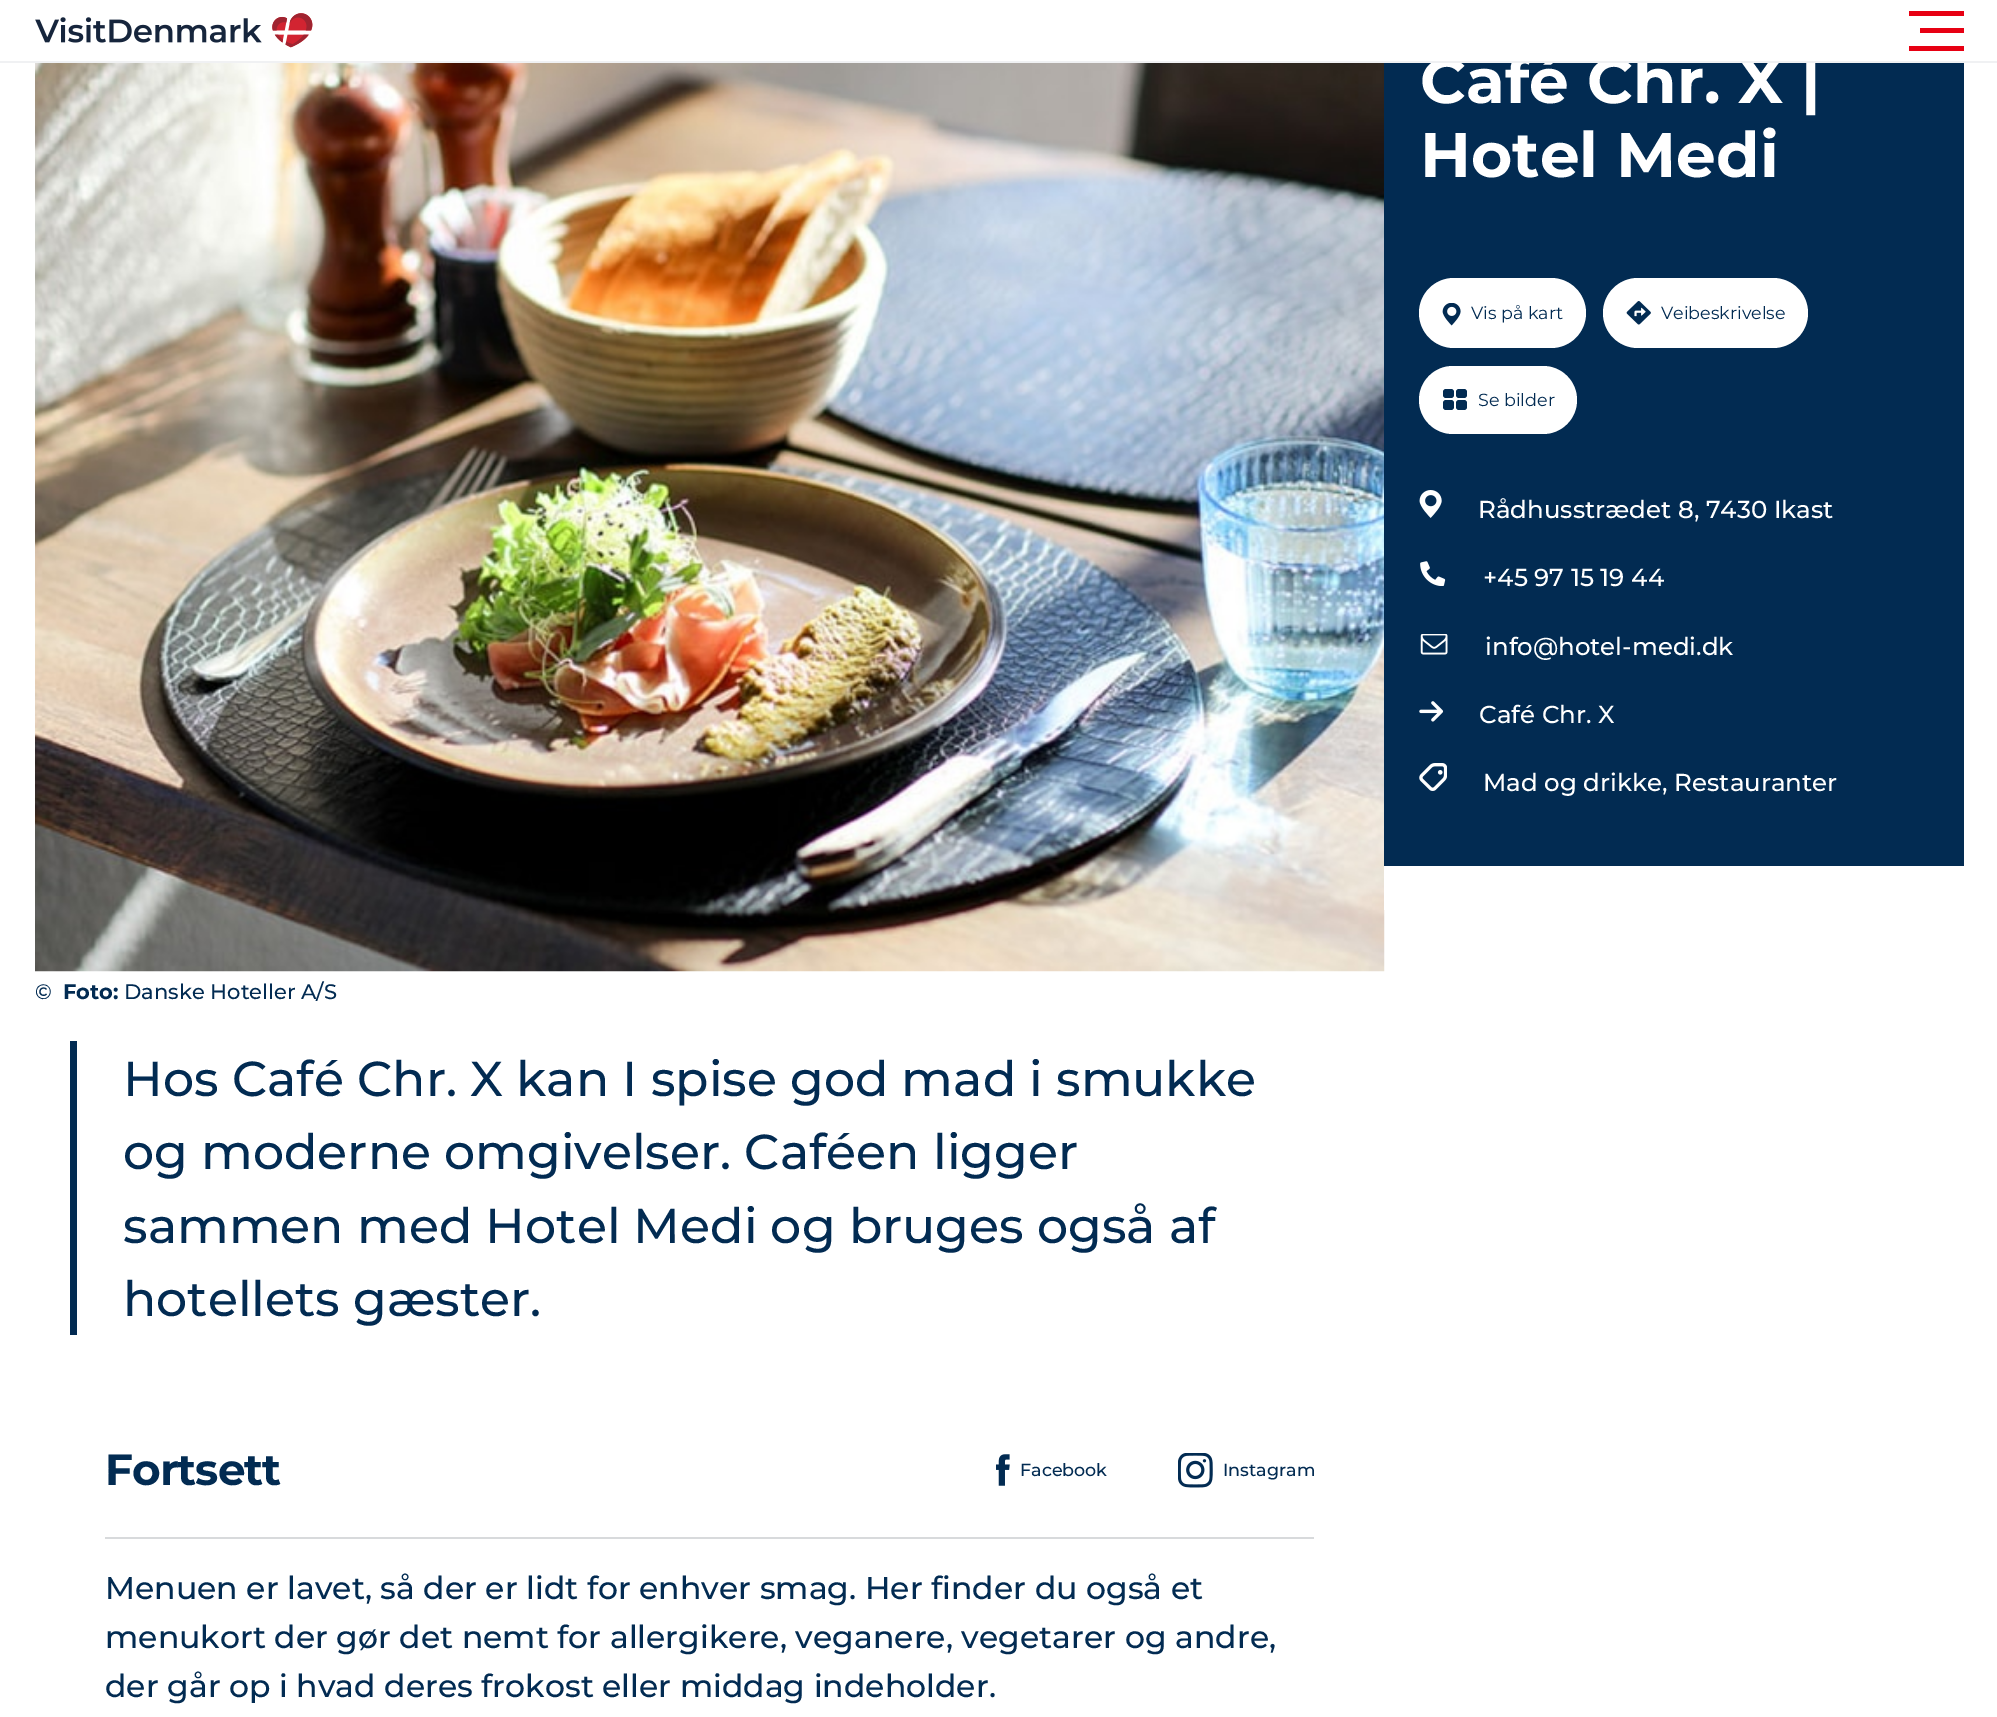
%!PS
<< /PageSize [1997 1717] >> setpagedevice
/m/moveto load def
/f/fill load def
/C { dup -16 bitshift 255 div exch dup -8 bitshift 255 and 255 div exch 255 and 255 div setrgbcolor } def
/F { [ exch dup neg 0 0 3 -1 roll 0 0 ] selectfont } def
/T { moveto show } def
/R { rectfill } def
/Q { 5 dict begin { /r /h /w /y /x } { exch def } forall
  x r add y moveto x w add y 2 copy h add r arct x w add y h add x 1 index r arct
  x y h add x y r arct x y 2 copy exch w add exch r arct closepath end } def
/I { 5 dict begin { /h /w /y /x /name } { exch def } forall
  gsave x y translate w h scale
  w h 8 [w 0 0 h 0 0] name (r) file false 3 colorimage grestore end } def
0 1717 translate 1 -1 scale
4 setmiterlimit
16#FFFFFF C
0 0 1997 1717 R
(9.rgb) 35 63 1350 909 I
16#022B52 C
1384 63 580 803 R
/Montserrat-Bold 63 F
16#FFFFFF C
(Café Chr. X |) 1420 103 T
16#F0F1F3 C
0 61 1997 2 R
(1.rgb) 35 13 278 35 I
16#E70013 C
1909 11 55 5 R
1920 28 44 5 R
1909 46 55 5 R
16#FFFFFF C
(Hotel Medi) 1420 177 T
1419 278 167 70 35 Q f
(2.rgb) 1442 303 19 23 I
/Montserrat-Regular 17.5 F
16#022B52 C
(Vis på kart) 1471 319 T
16#FFFFFF C
1603 278 205 70 35 Q f
(3.rgb) 1626 301 25 24 I
16#022B52 C
(Veibeskrivelse) 1661 319 T
16#FFFFFF C
1419 366 158 68 34 Q f
16#022B52 C
1456 389 11 9 3 Q f
1456 400 11 10 3 Q f
1443 389 11 9 3 Q f
1443 400 11 10 3 Q f
(Se bilder) 1478 406 T
(4.rgb) 1419 490 23 28 I
/Montserrat-Medium 24.5 F
16#FFFFFF C
(Rådhusstrædet 8, 7430 Ikast) 1478 518 T
(5.rgb) 1420 561 26 25 I
(+45 97 15 19 44) 1483 586 T
(6.rgb) 1420 634 28 21 I
(info@hotel-medi.dk) 1485 655 T
(7.rgb) 1419 701 25 21 I
(Café Chr. X) 1479 723 T
(8.rgb) 1419 763 28 28 I
(Mad og drikke, Restauranter) 1483 791 T
1384 866 1 44 R
/Montserrat-Medium 21 F
16#022B52 C
(©) 35 999 T
/Montserrat-Bold 21 F
(Foto:) 63 999 T
/Montserrat-Medium 21 F
(Danske Hoteller A/S) 124 999 T
70 1041 7 294 R
/Montserrat-Medium 49 F
(Hos Café Chr. X kan I spise god mad i smukke) 123 1096 T
(og moderne omgivelser. Caféen ligger) 123 1169 T
(sammen med Hotel Medi og bruges også af) 123 1243 T
(hotellets gæster.) 123 1316 T
16#D8DADC C
105 1537 1209 2 R
/Montserrat-Bold 43.75 F
16#022B52 C
105 1485 m -1 0 (Fortsett) ashow
(10.rgb) 996 1454 14 32 I
/Montserrat-Medium 17.5 F
(Facebook) 1020 1476 T
(11.rgb) 1178 1453 35 35 I
(Instagram) 1223 1476 T
/Montserrat-Medium 31.5 F
(Menuen er lavet, så der er lidt for enhver smag. Her finder du også et) 105 1599 T
(menukort der gør det nemt for allergikere, veganere, vegetarer og andre,) 105 1648 T
(der går op i hvad deres frokost eller middag indeholder.) 105 1697 T
showpage
